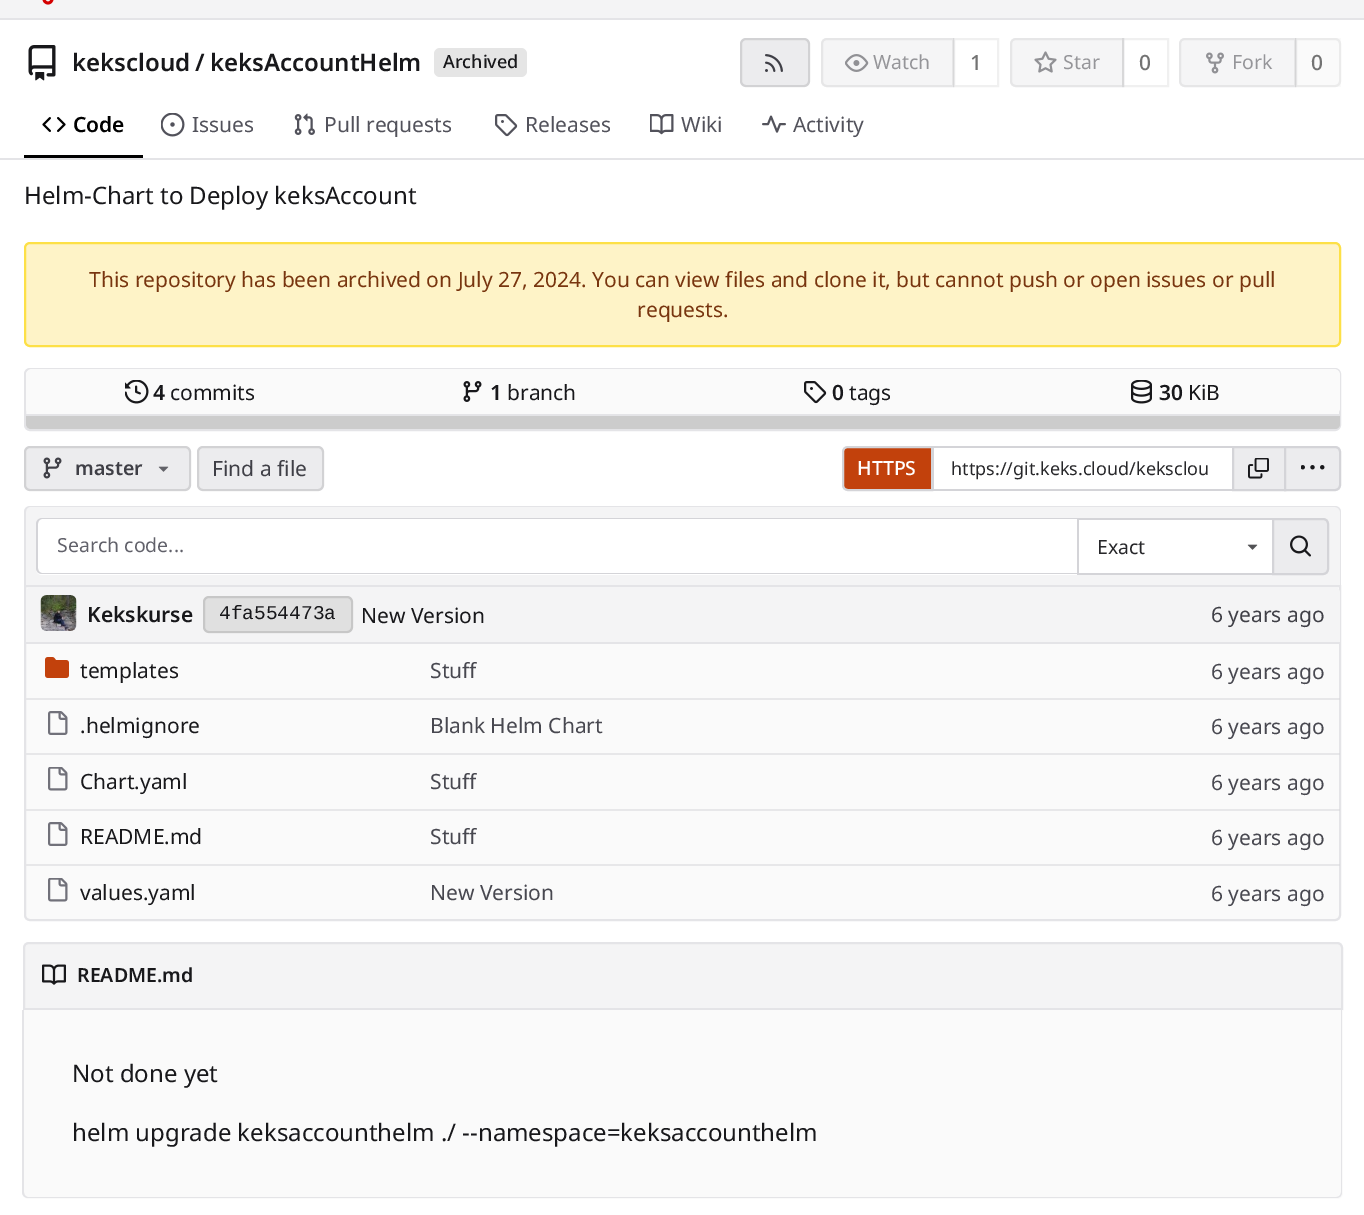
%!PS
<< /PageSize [1364 1215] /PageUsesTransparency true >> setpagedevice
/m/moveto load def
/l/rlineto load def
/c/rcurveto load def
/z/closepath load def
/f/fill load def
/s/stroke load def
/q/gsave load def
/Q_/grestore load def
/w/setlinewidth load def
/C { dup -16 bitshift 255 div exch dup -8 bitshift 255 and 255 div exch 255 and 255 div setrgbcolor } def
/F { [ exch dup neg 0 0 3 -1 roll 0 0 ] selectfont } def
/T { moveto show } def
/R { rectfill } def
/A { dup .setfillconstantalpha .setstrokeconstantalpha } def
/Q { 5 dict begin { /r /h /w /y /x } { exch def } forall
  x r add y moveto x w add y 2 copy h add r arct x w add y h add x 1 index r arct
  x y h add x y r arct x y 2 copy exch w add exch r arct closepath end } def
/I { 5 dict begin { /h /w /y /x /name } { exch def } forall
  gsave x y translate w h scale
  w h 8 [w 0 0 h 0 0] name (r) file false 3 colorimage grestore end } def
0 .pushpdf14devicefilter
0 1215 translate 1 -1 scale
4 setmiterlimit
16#FFFFFF C
0 0 1364 1215 R
16#F4F4F5 C
0 0 1364 18 R
16#E4E4E7 C
0 18 1364 2 R
(1.rgb) 42 0 12 5 I
(2.rgb) 28 45 28 36 I
/NotoSans-SemiBold 24 F
16#18181B C
(kekscloud) 72 71 T
(/) 195 71 T
(keksAccountHelm) 210 71 T
16#E5E5E5 C
434 48 93 29 6 Q f
/NotoSans-Medium 18 F
16#18181B C
(Archived) 443 68 T
16#ECECEE C
740 38 70 49 6 Q f
0.11 A
16#000000 C
2 w
741 39 68 47 5 Q s
1 A
(3.rgb) 765 54 18 18 I
16#F5F5F6 C
827 39 m 126 0 l 0 47 l -126 0 l -3 0 -5 -2 -5 -5 c 0 -37 l 0 -3 2 -5 5 -5 c z q f Q_
16#E6E6E7 C
s
(4.rgb) 845 54 24 18 I
/NotoSans-Regular 19.5 F
16#959599 C
(Watch) 873 69 T
0.06 A
16#000000 C
954 39 44 47 rectstroke
/NotoSans-Medium 21 F
1 A
16#737373 C
(1) 970 70 T
16#F5F5F6 C
1016 39 m 107 0 l 0 47 l -107 0 l -3 0 -5 -2 -5 -5 c 0 -37 l 0 -3 2 -5 5 -5 c z q f Q_
16#E6E6E7 C
s
(5.rgb) 1034 51 23 22 I
/NotoSans-Regular 19.5 F
16#959599 C
(Star) 1063 69 T
0.06 A
16#000000 C
1123 39 45 47 rectstroke
/NotoSans-Medium 21 F
1 A
16#737373 C
(0) 1139 70 T
16#F5F5F6 C
1185 39 m 110 0 l 0 47 l -110 0 l -3 0 -5 -2 -5 -5 c 0 -37 l 0 -3 2 -5 5 -5 c z q f Q_
16#E6E6E7 C
s
(6.rgb) 1206 52 18 22 I
/NotoSans-Regular 19.5 F
16#959599 C
(Fork) 1232 69 T
0.04 A
16#737373 C
1295 38 46 49 R
0.11 A
1296 39 m 39 0 l 3 0 5 2 5 5 c 0 37 l 0 3 -2 5 -5 5 c -39 0 l z s
/NotoSans-Medium 21 F
1 A
(0) 1311 70 T
16#000000 C
24 155 119 3 R
(7.rgb) 42 117 24 15 I
/NotoSans-SemiBold 21 F
(Code) 73 132 T
(8.rgb) 161 113 24 24 I
/NotoSans-Regular 21 F
16#52525B C
(Issues) 192 132 T
(9.rgb) 294 113 21 22 I
(Pull requests) 324 132 T
(10.rgb) 495 114 23 23 I
(Releases) 525 132 T
(11.rgb) 650 114 24 21 I
(Wiki) 681 132 T
(12.rgb) 762 115 24 18 I
(Activity) 793 132 T
16#E4E4E7 C
0 158 1364 2 R
/NotoSans-Regular 24 F
16#18181B C
(Helm-Chart to Deploy keksAccount) 24 204 T
16#FEF3C7 C
25 243 1315 103 5 Q q f Q_
16#FDE047 C
s
/NotoSans-Regular 21 F
16#78350F C
(This repository has been archived on July 27, 2024. You can view files and clone it, but cannot push or open issues or pull) 89 287 T
(requests.) 637 317 T
16#FAFAFA C
25 369 1315 61 5 Q q f Q_
16#E4E4E7 C
s
16#FAFAFA C
26 369 1314 45 6 Q f
(13.rgb) 125 380 24 24 I
/NotoSans-SemiBold 21 F
16#18181B C
(4) 153 400 T
/NotoSans-Regular 21 F
(commits) 170 400 T
(14.rgb) 463 381 19 21 I
/NotoSans-SemiBold 21 F
(1) 490 400 T
/NotoSans-Regular 21 F
(branch) 507 400 T
(15.rgb) 804 381 23 23 I
/NotoSans-SemiBold 21 F
(0) 832 400 T
/NotoSans-Regular 21 F
(tags) 849 400 T
(16.rgb) 1131 380 21 24 I
/NotoSans-SemiBold 21 F
(30) 1159 400 T
/NotoSans-Regular 21 F
(KiB) 1188 400 T
16#E4E4E7 C
26 414 1314 2 R
16#CCCCCC C
26 416 m 1314 0 l 0 8 l 0 3 -2 5 -5 5 c -1304 0 l -3 0 -5 -2 -5 -5 c z f
16#ECECEE C
24 446 167 45 6 Q f
0.11 A
16#000000 C
25 447 165 43 5 Q s
1 A
(17.rgb) 43 457 19 22 I
/NotoSans-SemiBold 19.5 F
16#3F3F46 C
(master) 75 475 T
(18.rgb) 158 466 11 6 I
16#ECECEE C
197 446 127 45 6 Q f
0.11 A
16#000000 C
198 447 125 43 5 Q s
/NotoSans-Regular 21 F
1 A
16#3F3F46 C
(Find a file) 212 476 T
16#C2410C C
848 447 m 84 0 l 0 43 l -84 0 l -3 0 -5 -2 -5 -5 c 0 -33 l 0 -3 2 -5 5 -5 c z q f Q_
16#D4D4D8 C
s
/NotoSans-Medium 19.5 F
16#FFFFFF C
(HTTPS) 857 475 T
16#D4D4D8 C
932 446 300 2 R
932 489 300 2 R
933 446 1 45 R
/NotoSans-Regular 18 F
16#27272A C
(https://git.keks.cloud/keksclou) 951 475 T
16#ECECEE C
1233 447 m 52 0 l 0 43 l -52 0 l z q f Q_
16#D4D4D8 C
s
(19.rgb) 1248 458 21 21 I
16#ECECEE C
1285 447 m 50 0 l 3 0 5 2 5 5 c 0 33 l 0 3 -2 5 -5 5 c -50 0 l z q f Q_
16#D4D4D8 C
s
(20.rgb) 1301 465 24 5 I
16#F4F4F5 C
31 507 m 1304 0 l 3 0 5 2 5 5 c 0 73 l -1314 0 l 0 -73 l 0 -3 2 -5 5 -5 c z f
16#E4E4E7 C
30 506 m 1305 0 l 3 0 6 2 6 6 c 0 73 l -1317 0 l 0 -73 l 0 -4 3 -6 6 -6 c z 30 507 m 1305 0 l 2 0 5 2 5 5 c 0 73 l -1314 0 l 0 -73 l 0 -3 2 -5 4 -5 c z eofill
16#FFFFFF C
42 518 m 1035 0 l 0 57 l -1035 0 l -3.5 0 -6 -2.5 -6 -6 c 0 -45 l 0 -3.5 2.5 -6 6 -6 c z f
16#D4D4D8 C
42 518 m 1035 0 l 0 56 l -1035 0 l -3 0 -6 -2 -6 -6 c 0 -44 l 0 -4 3 -6 6 -6 c z 42 519 m 1035 0 l 0 54 l -1035 0 l -2 0 -4 -2 -4 -5 c 0 -44 l 0 -3 2 -5 4 -5 c z eofill
/NotoSans-Regular 19.5 F
16#61616A C
(Search code...) 57 552 T
16#FFFFFF C
1079 520 193 53 R
16#D4D4D8 C
1077 518 195 2 R
1077 573 195 2 R
1077 518 2 57 R
16#27272A C
(Exact) 1097 554 T
(21.rgb) 1247 544 11 6 I
16#ECECEE C
1273 519 m 50 0 l 3 0 5 2 5 5 c 0 45 l 0 3 -2 5 -5 5 c -50 0 l z q f Q_
16#D4D4D8 C
s
(22.rgb) 1290 535 21 22 I
16#FAFAFA C
25 586 m 1315 0 l 0 329 l 0 3 -2 5 -5 5 c -1305 0 l -3 0 -5 -2 -5 -5 c z q f Q_
16#E4E4E7 C
s
16#F4F4F5 C
32 587 m 1171 0 l 0 57 l -1177 0 l 0 -51 l 0 -3.5 2.5 -6 6 -6 c z f
16#E4E4E7 C
26 642 1177 2 R
(23.rgb) 40 595 37 36 I
/NotoSans-SemiBold 21 F
16#18181B C
(Kekskurse) 87 622 T
16#E0E0E0 C
203 596 150 37 6 Q f
0.11 A
16#000000 C
204 597 148 35 5 Q s
/LiberationMono-Regular 19.5 F
1 A
16#18181B C
(4fa554473a) 219 619 T
/NotoSans-Regular 21 F
(New Version) 361 623 T
16#F4F4F5 C
1203 587 m 131 0 l 3.5 0 6 2.5 6 6 c 0 51 l -137 0 l z f
16#E4E4E7 C
1203 642 137 2 R
16#3F3F46 C
(6 years ago) 1211 622 T
(24.rgb) 45 657 24 21 I
16#18181B C
(templates) 80 678 T
16#484850 C
(Stuff) 430 678 T
(6 years ago) 1211 679 T
16#E7E7E9 C
26 698 1177 2 R
(25.rgb) 48 711 20 24 I
16#18181B C
(.helmignore) 80 733 T
16#484850 C
(Blank Helm Chart) 430 733 T
0.5 A
16#D4D4D8 C
1203 698 137 2 R
1 A
16#484850 C
(6 years ago) 1211 734 T
16#E7E7E9 C
26 753 1177 2 R
(26.rgb) 48 767 20 24 I
16#18181B C
(Chart.yaml) 80 789 T
16#484850 C
(Stuff) 430 789 T
0.5 A
16#D4D4D8 C
1203 753 137 2 R
1 A
16#484850 C
(6 years ago) 1211 790 T
16#E7E7E9 C
26 809 1177 2 R
(25.rgb) 48 822 20 24 I
16#18181B C
(README.md) 80 844 T
16#484850 C
(Stuff) 430 844 T
0.5 A
16#D4D4D8 C
1203 809 137 2 R
1 A
16#484850 C
(6 years ago) 1211 845 T
16#E7E7E9 C
26 864 1177 2 R
(26.rgb) 48 878 20 24 I
16#18181B C
(values.yaml) 80 900 T
16#484850 C
(New Version) 430 900 T
0.5 A
16#D4D4D8 C
1203 864 137 2 R
1 A
16#484850 C
(6 years ago) 1211 901 T
16#F4F4F5 C
29 943 m 1308 0 l 3 0 5 2 5 5 c 0 61 l -1318 0 l 0 -61 l 0 -3 2 -5 5 -5 c z q f Q_
16#E4E4E7 C
s
(27.rgb) 42 964 24 21 I
/NotoSans-SemiBold 19.5 F
16#18181B C
(README.md) 77 982 T
16#FAFAFA C
23 1010 m 1320 0 l 0 183 l 0 3.5 -2.5 6 -6 6 c -1308 0 l -3.5 0 -6 -2.5 -6 -6 c z f
16#E4E4E7 C
22 1010 m 1320 0 l 0 182 l 0 4 -2 6 -6 6 c -1308 0 l -3 0 -6 -2 -6 -6 c z 24 1010 m 1317 0 l 0 182 l 0 3 -2 5 -5 5 c -1308 0 l -2 0 -4 -2 -4 -5 c z eofill
/NotoSans-Regular 24 F
16#18181B C
(Not done yet) 72 1082 T
(helm upgrade keksaccounthelm ./ --namespace=keksaccounthelm) 72 1141 T
.poppdf14devicefilter showpage
